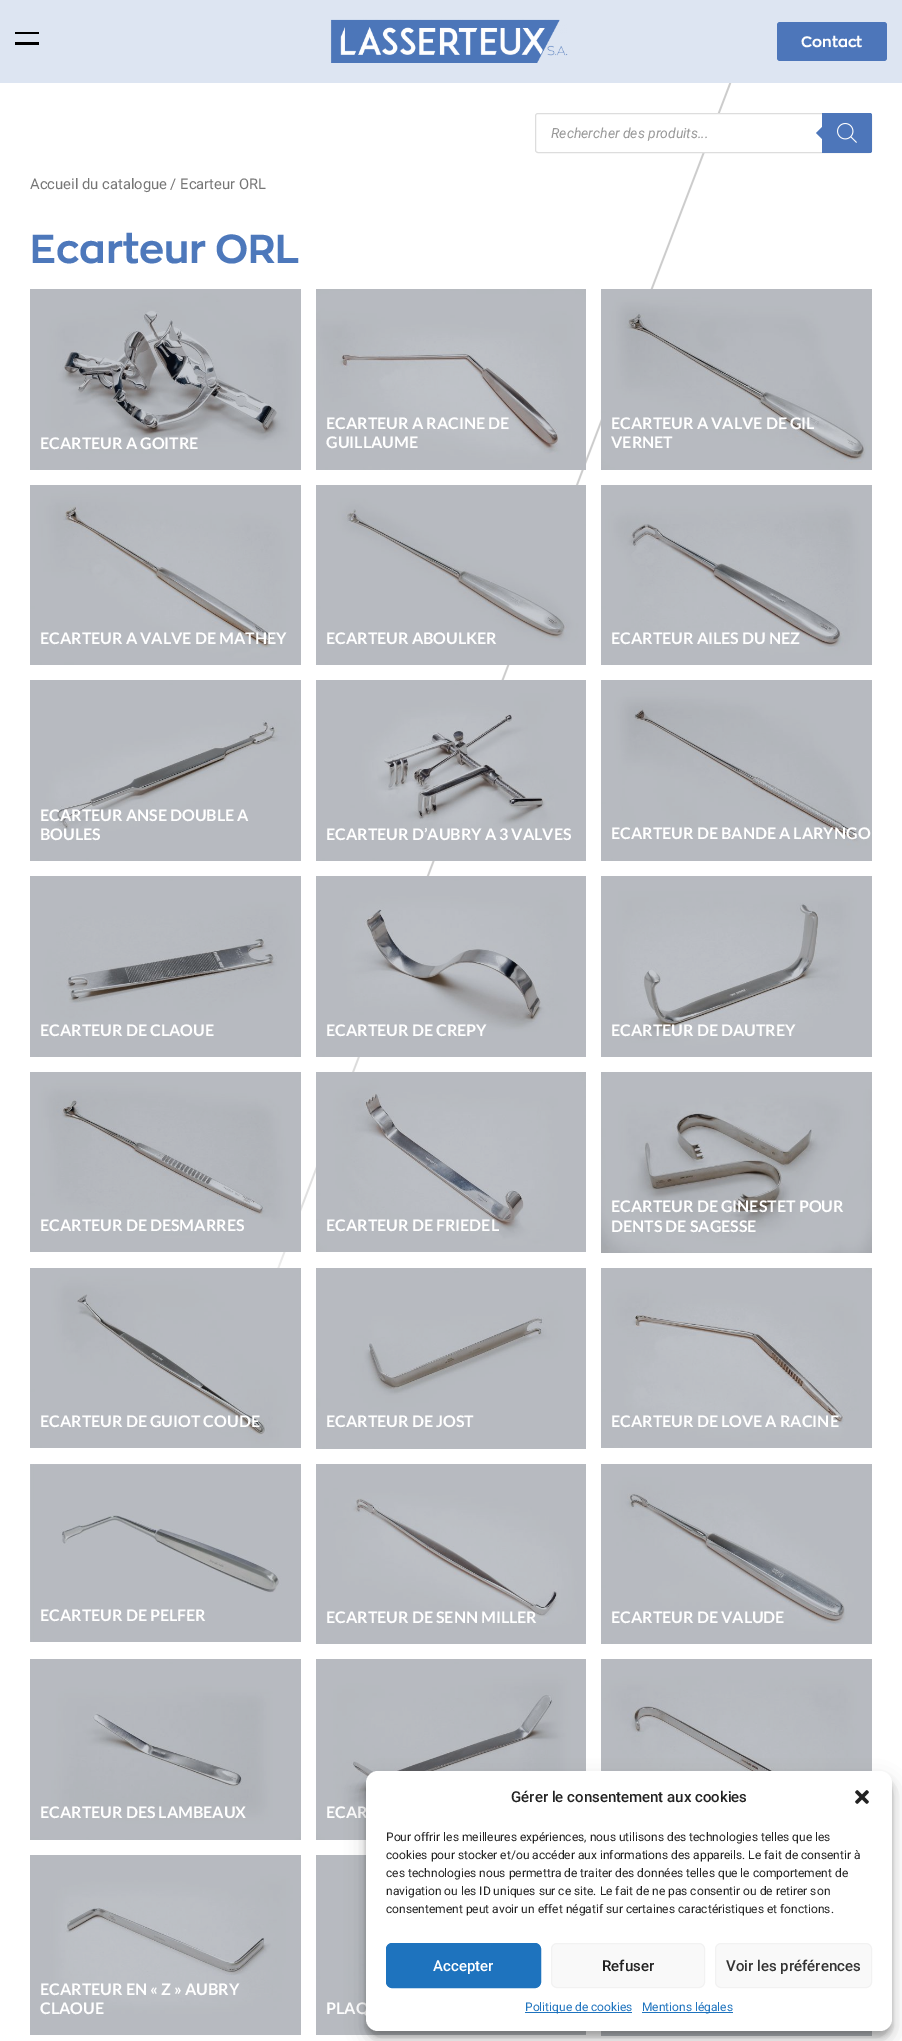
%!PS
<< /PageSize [902 2041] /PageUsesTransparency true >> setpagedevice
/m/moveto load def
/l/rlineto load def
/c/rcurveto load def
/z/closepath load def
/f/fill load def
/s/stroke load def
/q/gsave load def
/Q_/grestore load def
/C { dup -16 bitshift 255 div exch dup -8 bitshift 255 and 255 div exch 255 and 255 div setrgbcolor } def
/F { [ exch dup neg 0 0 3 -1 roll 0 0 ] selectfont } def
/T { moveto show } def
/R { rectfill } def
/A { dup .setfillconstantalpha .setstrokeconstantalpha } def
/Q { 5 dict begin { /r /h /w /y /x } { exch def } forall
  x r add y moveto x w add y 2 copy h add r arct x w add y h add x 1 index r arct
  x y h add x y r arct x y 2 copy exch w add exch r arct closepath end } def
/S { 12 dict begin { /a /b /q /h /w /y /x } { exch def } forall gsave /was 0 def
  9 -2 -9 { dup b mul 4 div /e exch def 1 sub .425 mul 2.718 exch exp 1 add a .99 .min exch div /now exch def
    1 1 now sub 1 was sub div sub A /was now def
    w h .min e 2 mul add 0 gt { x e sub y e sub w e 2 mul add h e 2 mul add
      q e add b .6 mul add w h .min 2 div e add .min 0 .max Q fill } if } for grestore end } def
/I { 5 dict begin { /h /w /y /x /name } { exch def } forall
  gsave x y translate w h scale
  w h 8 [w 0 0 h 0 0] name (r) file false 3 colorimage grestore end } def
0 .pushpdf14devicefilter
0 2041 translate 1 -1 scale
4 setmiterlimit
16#FFFFFF C
0 0 902 2041 R
16#DDE5F2 C
0 0 902 83 R
16#000000 C
15 32 24 2 R
15 42 24 3 R
(1.rgb) 330 19 238 44 I
16#4D76BA C
777 22 110 39 3 Q f
/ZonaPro-Bold 15 F
16#FFFFFF C
(Contact) 801 47 T
(2.rgb) 252 83 480 1252 I
535.5 113.5 336 39 2.5 Q q f Q_
16#DDDDDD C
s
/Roboto-Italic 14 F
16#999999 C
(Rechercher des produits...) 551 138 T
16#4D76BA C
822 113 m 48 0 l 1 0 2 1 2 2 c 0 36 l 0 1 -1 2 -2 2 c -48 0 l z f
824 125 m 0 16 l -8 -8 l z f
(3.rgb) 837 123 20 20 I
/Roboto-Regular 14.75 F
16#767676 C
(Accueil du catalogue / Ecarteur ORL) 30 189 T
/ZonaPro-Bold 40 F
16#4D78BB C
(Ecarteur ORL) 30 263 T
(4.rgb) 30 289 271 181 I
/Lato-Bold 16 F
16#FFFFFF C
(ECARTEUR A GOITRE) 40 449 T
(5.rgb) 316 289 270 181 I
(ECARTEUR A RACINE DE) 326 429 T
(GUILLAUME) 326 448 T
(6.rgb) 601 289 271 181 I
(ECARTEUR A VALVE DE GIL) 611 429 T
(VERNET) 611 448 T
(7.rgb) 30 485 271 180 I
(ECARTEUR A VALVE DE MATHEY) 40 644 T
(8.rgb) 316 485 270 180 I
(ECARTEUR ABOULKER) 326 644 T
(9.rgb) 601 485 271 180 I
(ECARTEUR AILES DU NEZ) 611 644 T
(10.rgb) 30 680 271 181 I
(ECARTEUR ANSE DOUBLE A) 40 821 T
(BOULES) 40 840 T
(11.rgb) 316 680 270 181 I
(ECARTEUR D’AUBRY A 3 VALVES) 326 840 T
(12.rgb) 601 680 271 181 I
(ECARTEUR DE BANDE A LARYNGO) 611 839 T
(13.rgb) 30 876 271 181 I
(ECARTEUR DE CLAOUE) 40 1036 T
(14.rgb) 316 876 270 181 I
(ECARTEUR DE CREPY) 326 1036 T
(15.rgb) 601 876 271 181 I
(ECARTEUR DE DAUTREY) 611 1036 T
(16.rgb) 30 1072 271 180 I
(ECARTEUR DE DESMARRES) 40 1231 T
(17.rgb) 316 1072 270 180 I
(ECARTEUR DE FRIEDEL) 326 1231 T
(18.rgb) 601 1072 271 181 I
(ECARTEUR DE GINESTET POUR) 611 1212 T
(DENTS DE SAGESSE) 611 1232 T
(19.rgb) 30 1268 271 180 I
(ECARTEUR DE GUIOT COUDE) 40 1427 T
(20.rgb) 316 1268 270 181 I
(ECARTEUR DE JOST) 326 1427 T
(21.rgb) 601 1268 271 180 I
(ECARTEUR DE LOVE A RACINE) 611 1427 T
(22.rgb) 30 1464 271 178 I
(ECARTEUR DE PELFER) 40 1621 T
(23.rgb) 316 1464 270 180 I
(ECARTEUR DE SENN MILLER) 326 1623 T
(24.rgb) 601 1464 271 180 I
(ECARTEUR DE VALUDE) 611 1623 T
(25.rgb) 601 1659 271 112 I
(26.rgb) 30 1659 271 181 I
(ECARTEUR DES LAMBEAUX) 40 1818 T
(27.rgb) 316 1659 270 181 I
(ECAR) 326 1818 T
(28.rgb) 30 1855 271 180 I
(ECARTEUR EN « Z » AUBRY) 40 1995 T
(CLAOUE) 40 2014 T
(29.rgb) 316 1855 270 180 I
(PLAQ) 326 2014 T
(30.rgb) 601 2031 271 5 I
16#000000 C
366 1777 526 260 12 3 .23 S
366 1781 526 260 12 10 .19 S
16#FFFFFF C
366 1771 526 260 12 Q f
/Roboto-Medium 15 F
16#222222 C
(Gérer le consentement aux cookies) 511 1802 T
(31.rgb) 855 1790 14 14 I
/Roboto-Regular 12 F
(Pour offrir les meilleures expériences, nous utilisons des technologies telles que les) 386 1841 T
(cookies pour stocker et/ou accéder aux informations des appareils. Le fait de consentir à) 386 1859 T
(ces technologies nous permettra de traiter des données telles que le comportement de) 386 1877 T
(navigation ou les ID uniques sur ce site. Le fait de ne pas consentir ou de retirer son) 386 1895 T
(consentement peut avoir un effet négatif sur certaines caractéristiques et fonctions.) 386 1913 T
16#1E73BE C
386.5 1943.5 154 44 5.5 Q q f Q_
s
/Roboto-Medium 15 F
16#FFFFFF C
(Accepter) 433 1971 T
16#F9F9F9 C
551.5 1943.5 153 44 5.5 Q q f Q_
16#F2F2F2 C
s
16#222222 C
(Refuser) 602 1971 T
16#F9F9F9 C
715.5 1943.5 156 44 5.5 Q q f Q_
16#F2F2F2 C
s
16#333333 C
(Voir les préférences) 726 1971 T
16#1E73BE C
525 2012 107 1 R
/Roboto-Regular 12 F
(Politique de cookies) 525 2011 T
642 2012 91 1 R
(Mentions légales) 642 2011 T
.poppdf14devicefilter showpage
